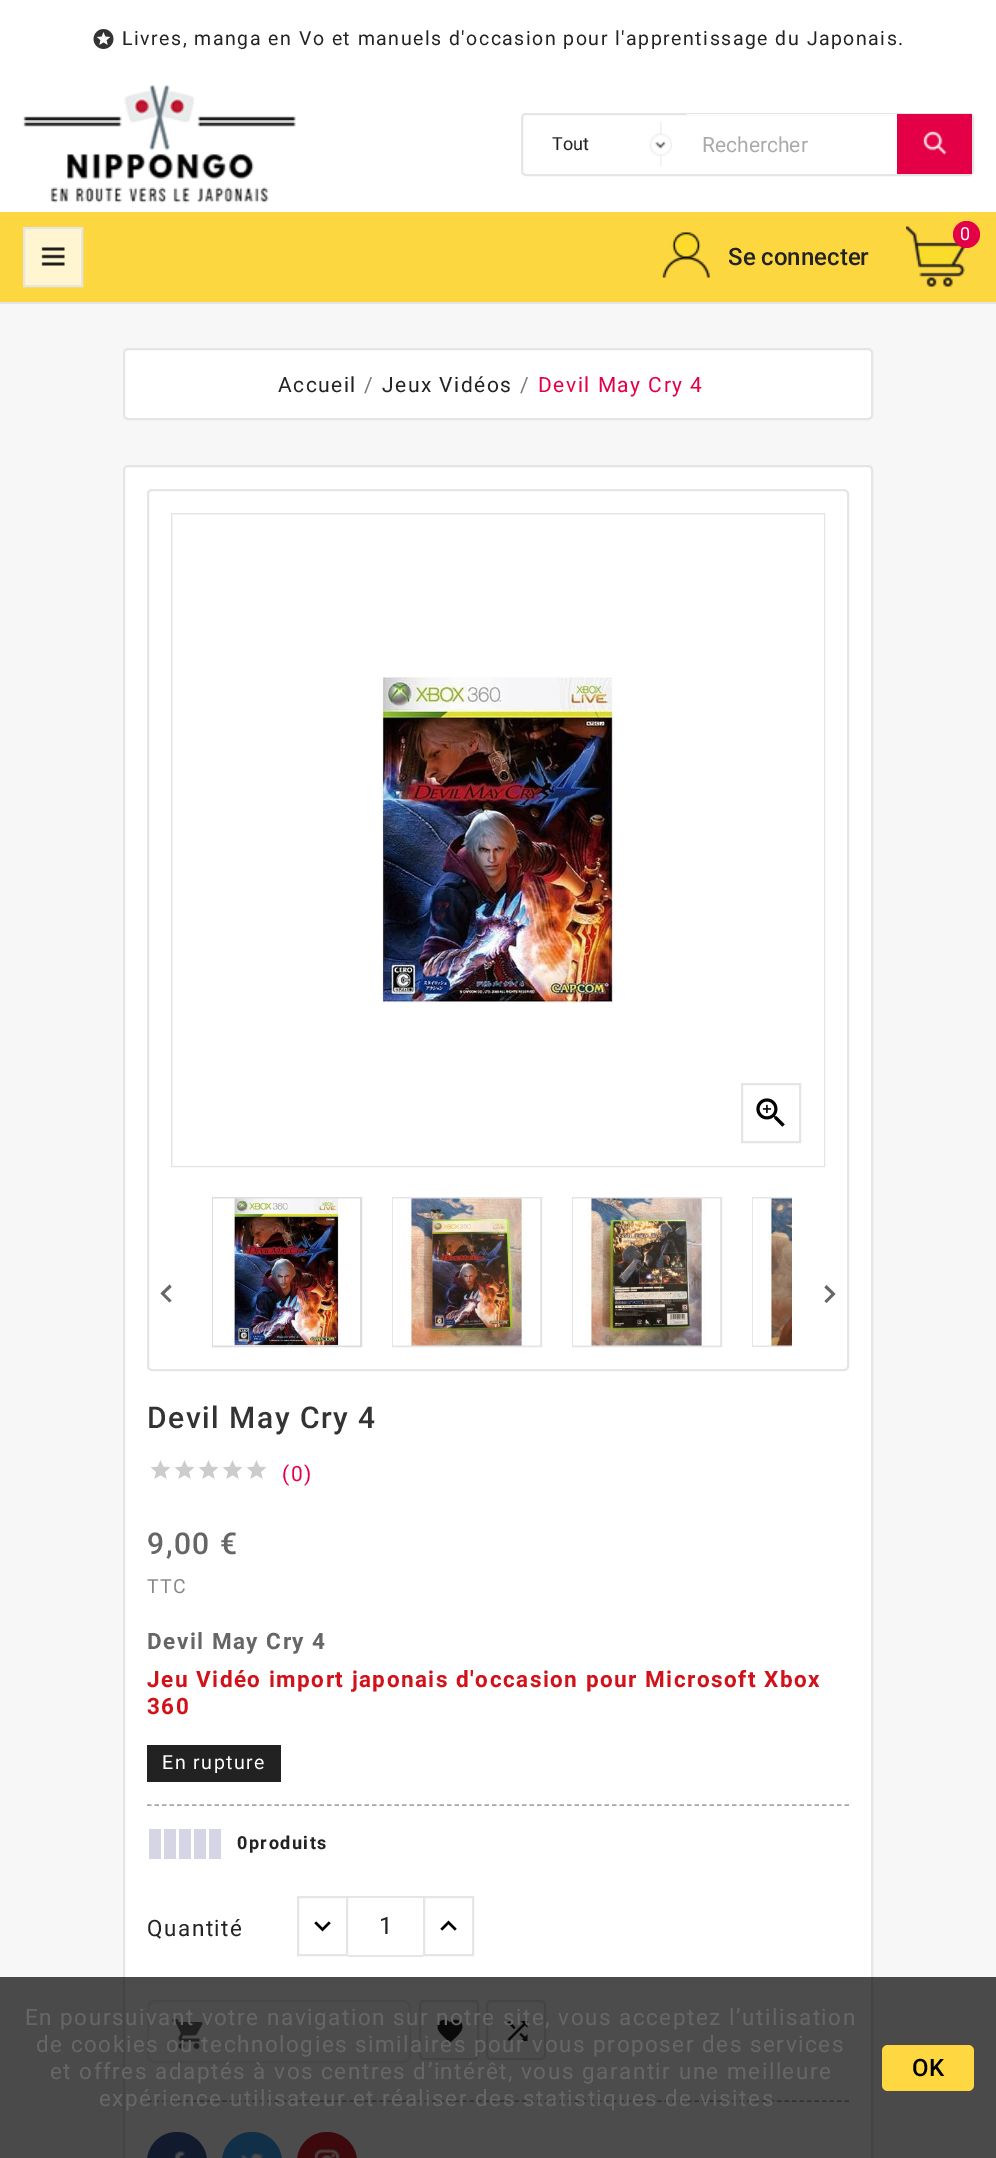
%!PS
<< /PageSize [996 2158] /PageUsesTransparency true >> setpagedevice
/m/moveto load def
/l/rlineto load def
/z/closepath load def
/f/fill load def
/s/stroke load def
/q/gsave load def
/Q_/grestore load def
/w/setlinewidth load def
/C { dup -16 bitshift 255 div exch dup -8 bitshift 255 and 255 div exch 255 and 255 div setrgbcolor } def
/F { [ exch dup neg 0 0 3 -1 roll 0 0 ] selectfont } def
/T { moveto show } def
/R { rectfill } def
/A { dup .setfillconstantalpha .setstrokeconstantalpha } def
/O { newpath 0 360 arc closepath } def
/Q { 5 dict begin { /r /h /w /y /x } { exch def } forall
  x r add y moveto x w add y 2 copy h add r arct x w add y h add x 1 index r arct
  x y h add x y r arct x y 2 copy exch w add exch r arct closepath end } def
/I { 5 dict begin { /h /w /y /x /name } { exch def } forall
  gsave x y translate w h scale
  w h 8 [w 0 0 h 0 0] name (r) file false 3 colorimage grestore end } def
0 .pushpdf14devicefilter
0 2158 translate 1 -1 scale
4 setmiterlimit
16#F7F7F7 C
0 0 996 2158 R
16#FFFFFF C
0 0 996 212 R
16#E5E5E5 C
0 302 996 2 R
(1.rgb) 93 29 21 20 I
/Roboto-Regular 19.5 F
16#232323 C
122 45 m 1.5 0 (Livres, manga en Vo et manuels d'occasion pour l'apprentissage du Japonais.) ashow
(2.rgb) 23 85 273 118 I
16#E5E5E5 C
2 w
522 114 451 61 4 Q s
(3.rgb) 649 121 23 46 I
/Roboto-Regular 18 F
16#232323 C
(Tout) 552 150 T
16#FFFFFF C
687 114 210 1 R
/Roboto-Regular 21 F
16#AAAAAA C
(Rechercher) 702 152 T
16#E40046 C
897 114 75 60 R
(4.rgb) 922 130 25 25 I
16#FDD740 C
0 212 996 90 R
16#FFF5D1 C
25 229 56 56 R
(5.rgb) 41 247 24 19 I
16#E5E5E5 C
24 228 58 58 rectstroke
(6.rgb) 906 226 60 61 I
16#E40046 C
966.5 234.5 13.5 O f
/Roboto-Regular 18 F
16#FFFFFF C
960 240 m 1.5 0 (0) ashow
(7.rgb) 662 232 48 46 I
/Roboto-Medium 24 F
16#232323 C
(Se connecter) 728 265 T
16#FFFFFF C
124 349 748 70 4 Q q f Q_
16#E5E5E5 C
s
/Roboto-Regular 21 F
16#232323 C
278 392 m 1.5 0 (Accueil) ashow
16#7A7A7A C
364 392 m 1.5 0 (/) ashow
16#232323 C
382 392 m 1.5 0 (Jeux Vidéos) ashow
16#7A7A7A C
520 392 m 1.5 0 (/) ashow
16#E40046 C
538 392 m 1.5 0 (Devil May Cry 4) ashow
16#FFFFFF C
124 466 748 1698 4 Q q f Q_
16#E5E5E5 C
s
148 490 700 880 4 Q s
172 514 652 652 rectstroke
16#FFFFFF C
173 515 651 651 R
(8.rgb) 172 514 652 652 I
16#E5E5E5 C
742 1084 58 58 rectstroke
(9.rgb) 756 1098 29 29 I
16#DDDDDD C
213 1198 148 148 rectstroke
(10.rgb) 213 1198 147 148 I
16#E5E5E5 C
393 1198 148 148 rectstroke
(11.rgb) 393 1198 147 148 I
573 1198 148 148 rectstroke
(12.rgb) 573 1198 147 148 I
q
204 1197 588 150 rectclip
753 1198 148 148 rectstroke
Q_
(13.rgb) 753 1198 39 148 I
16#666666 C
171.5 1300.5 m -2 2 l -9 -9 l 9 -9 l 2 2.5 l -7 6.5 l z f
824.5 1301 m 7 -7 l -7 -6.5 l 2 -2.5 l 9 9 l -9 9 l z f
/Roboto-Medium 30 F
16#333333 C
147 1428 m 1.5 0 (Devil May Cry 4) ashow
(14.rgb) 150 1460 21 19 I
(14.rgb) 174 1460 21 19 I
(14.rgb) 198 1460 21 19 I
(14.rgb) 222 1460 21 19 I
(14.rgb) 246 1460 21 19 I
/Roboto-Regular 21 F
16#E40046 C
282 1481 m 1.5 0 (\(0\)) ashow
/Roboto-Medium 30 F
16#666666 C
147 1554 m 1.5 0 (9,00 €) ashow
/Roboto-Regular 19.5 F
16#878787 C
147 1593 m 1.5 0 (TTC) ashow
/Roboto-Bold 22.5 F
16#666666 C
147 1649 m 1.5 0 (Devil May Cry 4) ashow
16#D0121A C
147 1687 m 1.5 0 (Jeu Vidéo import japonais d'occasion pour Microsoft Xbox) ashow
147 1714 m 1.5 0 (360) ashow
16#222222 C
147 1745 134 37 R
/Roboto-Regular 19.5 F
16#FFFFFF C
162 1769 m 1.5 0 (En rupture) ashow
16#A7A7A7 C
1.5 w
[4.5 3] 0 setdash
147 1805 m 702 0 l s
16#D5D5E5 C
149 1829 12 30 R
164 1829 12 30 R
179 1829 12 30 R
194 1829 12 30 R
209 1829 12 30 R
/Roboto-Bold 18 F
16#232323 C
237 1849 m 1.5 0 (0produits) ashow
/Roboto-Regular 22.5 F
147 1936 m 1.5 0 (Quantité) ashow
16#E5E5E5 C
2 w
[] 0 setdash
298 1897 49 58 rectstroke
(15.rgb) 314 1921 17 11 I
348 1896 75 2 R
348 1955 75 2 R
/Roboto-Regular 24 F
16#232323 C
(1) 379 1934 T
16#E5E5E5 C
424 1897 49 58 rectstroke
(16.rgb) 440 1920 17 11 I
16#A7A7A7 C
1.5 w
[4.5 3] 0 setdash
147 2101 m 702 0 l s
16#EEEEEE C
2 w
[] 0 setdash
148 2001 262 61 7 Q s
(17.rgb) 172 2019 31 30 I
16#E5E5E5 C
420 2001 58 58 4 Q s
(18.rgb) 437 2019 26 24 I
487 2001 58 58 4 Q s
(19.rgb) 507 2021 21 20 I
16#3C5A99 C
147 2132 60 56 30 Q f
(20.rgb) 174 2150 11 8 I
16#38A1F3 C
222 2132 60 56 30 Q f
(21.rgb) 241 2152 22 6 I
16#C8232C C
297 2132 60 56 30 Q f
(22.rgb) 314 2149 26 9 I
0.7 A
16#000000 C
0 1977 996 181 R
/Roboto-Regular 22.5 F
1 A
16#666666 C
25 2025 m 1.5 0 (En poursuivant votre navigation sur notre site, vous acceptez l’utilisation) ashow
36 2052 m 1.5 0 (de cookies ou technologies similaires pour vous proposer des services) ashow
50 2079 m 1.5 0 (et offres adaptés à vos centres d’intérêt, vous garantir une meilleure) ashow
99 2106 m 1.5 0 (expérience utilisateur et réaliser des statistiques de visites) ashow
16#FFD741 C
882 2045 92 46 6 Q f
/Roboto-Medium 24 F
16#000000 C
(OK) 912 2076 T
.poppdf14devicefilter showpage
